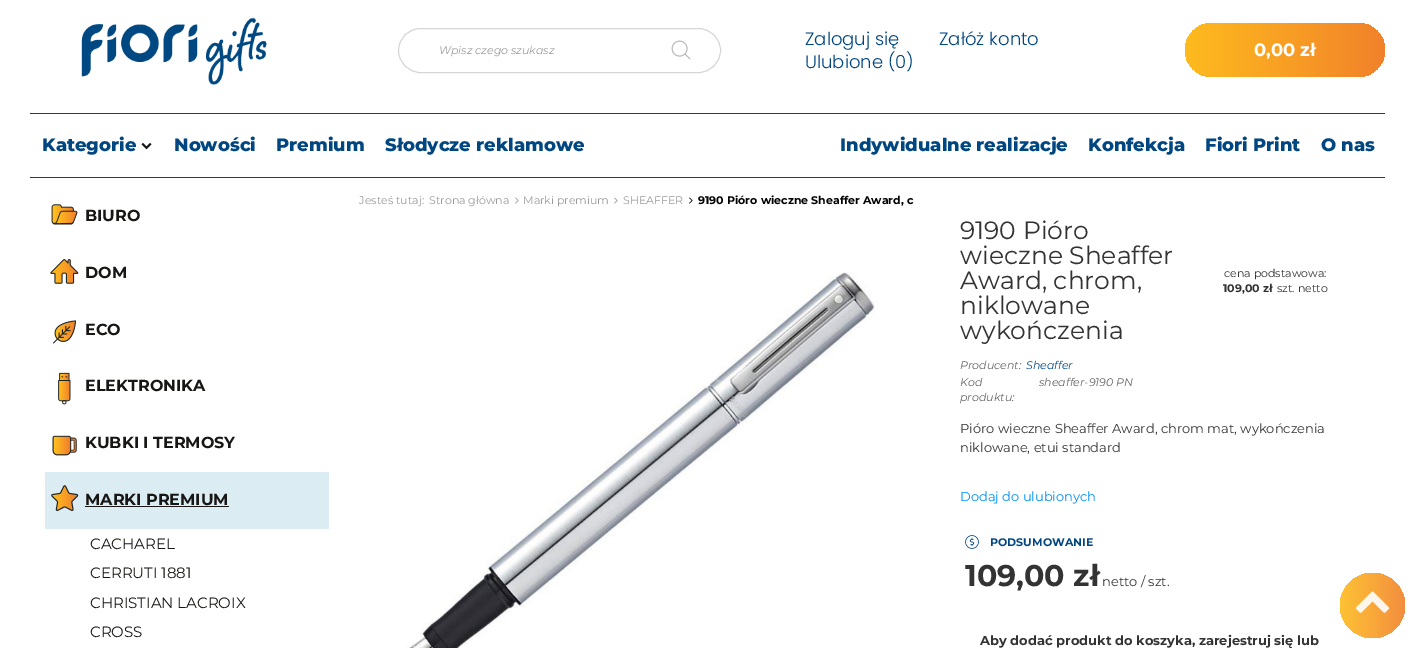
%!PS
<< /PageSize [1415 648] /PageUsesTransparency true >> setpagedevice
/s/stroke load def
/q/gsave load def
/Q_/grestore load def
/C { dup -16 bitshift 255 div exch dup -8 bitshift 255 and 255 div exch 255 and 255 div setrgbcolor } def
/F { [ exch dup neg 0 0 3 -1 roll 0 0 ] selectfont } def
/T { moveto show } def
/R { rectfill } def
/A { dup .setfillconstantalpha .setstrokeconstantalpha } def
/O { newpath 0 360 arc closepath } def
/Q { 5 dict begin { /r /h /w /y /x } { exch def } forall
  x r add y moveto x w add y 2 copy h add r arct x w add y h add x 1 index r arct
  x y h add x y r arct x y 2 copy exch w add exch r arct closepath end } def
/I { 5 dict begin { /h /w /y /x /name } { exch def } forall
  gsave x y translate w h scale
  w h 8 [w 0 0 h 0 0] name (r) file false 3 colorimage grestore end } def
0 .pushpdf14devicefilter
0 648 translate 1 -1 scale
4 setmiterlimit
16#FFFFFF C
0 0 1415 648 R
(1.rgb) 81 17 186 68 I
16#D6D6D6 C
398.5 28.5 322 44 22 Q s
/Montserrat-ThinItalic 11 F
16#9A9A9A C
(Wpisz czego szukasz) 439 54 T
(2.rgb) 671 40 20 20 I
/Poppins-Light 18 F
16#004680 C
(Zaloguj się) 805 45 T
(Załóż konto) 939 45 T
(Ulubione \(0\)) 805 68 T
q 1185 23 200 54 27 Q clip newpath
<< /ShadingType 2 /ColorSpace /DeviceRGB /Coords [1185 50 1385 50] /Extend [true true] /Function << /FunctionType 3 /Domain [0 1] /Functions [<< /FunctionType 2 /Domain [0 1] /C0 [.996 .733 .118] /C1 [.973 .624 .141] /N 1 >> << /FunctionType 2 /Domain [0 1] /C0 [.973 .624 .141] /C1 [.945 .506 .165] /N 1 >>] /Bounds [.5] /Encode [0 1 0 1] >> >> shfill Q_
/Montserrat-Bold 18 F
16#FFFFFF C
(0,00 zł) 1254 56 T
16#004680 C
30 113 1355 1 R
30 177 1355 1 R
/Montserrat-ExtraBold 18 F
(Kategorie) 42 151 T
(3.rgb) 141 143 11 7 I
(Nowości) 174 151 T
(Premium) 276 151 T
(Słodycze reklamowe) 385 151 T
(Indywidualne realizacje) 840 151 T
(Konfekcja) 1088 151 T
(Fiori Print) 1205 151 T
(O nas) 1321 151 T
/Montserrat-Regular 11 F
16#9A9A9A C
(Jesteś tutaj:) 359 204 T
(Strona główna) 429 204 T
(4.rgb) 515 197 4 7 I
(Marki premium) 523 204 T
(4.rgb) 614 197 4 7 I
(SHEAFFER) 623 204 T
(5.rgb) 689 197 4 7 I
/Montserrat-Bold 11 F
16#000000 C
(9190 Pióro wieczne Sheaffer Award, c) 698 204 T
(6.rgb) 406 272 469 376 I
(7.rgb) 51 204 27 21 I
/Montserrat-Bold 16 F
16#191715 C
(BIURO) 85 221 T
(8.rgb) 50 259 29 25 I
(DOM) 85 278 T
(9.rgb) 53 320 24 24 I
(ECO) 85 335 T
(10.rgb) 58 372 13 33 I
(ELEKTRONIKA) 85 391 T
(11.rgb) 52 435 25 21 I
(KUBKI I TERMOSY) 85 448 T
16#DBECF3 C
45 472 284 57 R
(12.rgb) 51 485 28 27 I
16#191715 C
(MARKI PREMIUM) 85 505 T
85 506 144 1 R
/Montserrat-Regular 15 F
(CACHAREL) 90 549 T
(CERRUTI 1881) 90 578 T
(CHRISTIAN LACROIX) 90 608 T
(CROSS) 90 637 T
/Montserrat-Regular 25 F
16#333333 C
(9190 Pióro) 960 239 T
(wieczne Sheaffer) 960 264 T
(Award, chrom,) 960 289 T
(niklowane) 960 314 T
(wykończenia) 960 339 T
/Montserrat-Regular 11 F
(cena podstawowa:) 1224 277 T
/Montserrat-Bold 11 F
(109,00 zł) 1223 292 T
/Montserrat-Regular 11 F
(szt. netto) 1277 292 T
/Montserrat-ThinItalic 11 F
16#636363 C
(Producent:) 960 369 T
16#004680 C
(Sheaffer) 1026 369 T
16#636363 C
(Kod) 960 386 T
(produktu:) 960 401 T
(sheaffer-9190 PN) 1039 386 T
/Montserrat-Regular 13 F
16#333333 C
(Pióro wieczne Sheaffer Award, chrom mat, wykończenia) 960 433 T
(niklowane, etui standard) 960 452 T
16#0090F6 C
(Dodaj do ulubionych) 960 501 T
(13.rgb) 965 535 14 14 I
/Montserrat-Bold 11 F
16#004680 C
(PODSUMOWANIE) 990 546 T
/Montserrat-Bold 30 F
16#333333 C
(109,00 zł) 965 586 T
/Montserrat-Regular 13 F
(netto / szt.) 1102 586 T
/Montserrat-Bold 13 F
(Aby dodać produkt do koszyka, zarejestruj się lub) 980 645 T
0.9 A
q 1372.5 605.5 32.5 O clip newpath
<< /ShadingType 2 /ColorSpace /DeviceRGB /Coords [1340 606 1405 606] /Extend [true true] /Function << /FunctionType 3 /Domain [0 1] /Functions [<< /FunctionType 2 /Domain [0 1] /C0 [.996 .733 .118] /C1 [.973 .624 .141] /N 1 >> << /FunctionType 2 /Domain [0 1] /C0 [.973 .624 .141] /C1 [.945 .506 .165] /N 1 >>] /Bounds [.5] /Encode [0 1 0 1] >> >> shfill Q_
1 A
(14.rgb) 1355 591 35 22 I
.poppdf14devicefilter showpage
